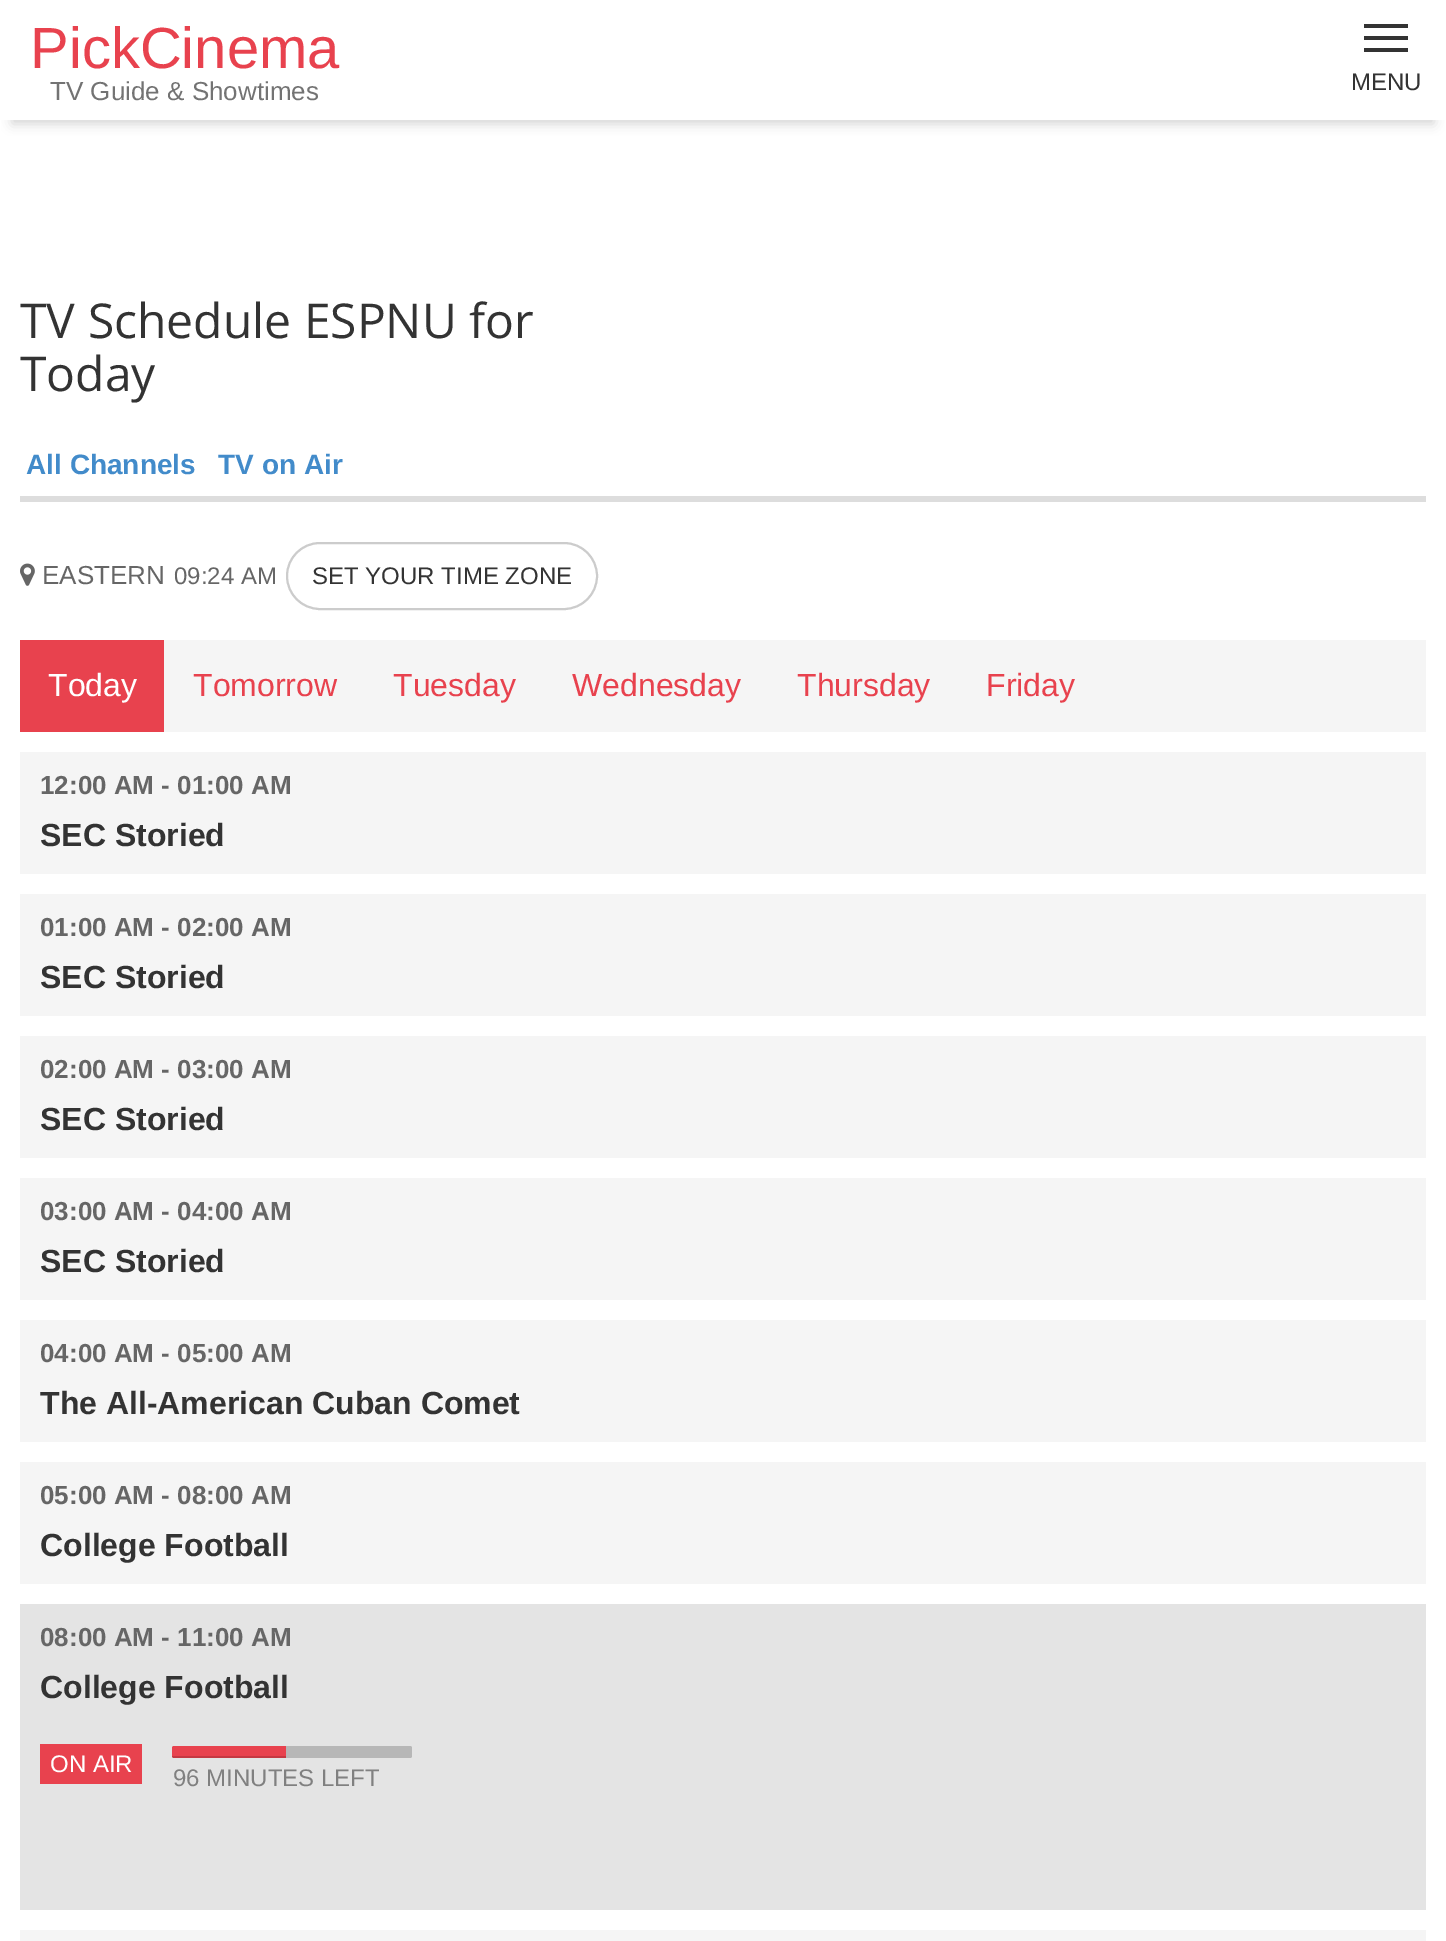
%!PS
<< /PageSize [1446 1941] /PageUsesTransparency true >> setpagedevice
/m/moveto load def
/l/rlineto load def
/c/rcurveto load def
/z/closepath load def
/f/fill load def
/s/stroke load def
/q/gsave load def
/Q_/grestore load def
/w/setlinewidth load def
/C { dup -16 bitshift 255 div exch dup -8 bitshift 255 and 255 div exch 255 and 255 div setrgbcolor } def
/F { [ exch dup neg 0 0 3 -1 roll 0 0 ] selectfont } def
/T { moveto show } def
/R { rectfill } def
/A { dup .setfillconstantalpha .setstrokeconstantalpha } def
/Q { 5 dict begin { /r /h /w /y /x } { exch def } forall
  x r add y moveto x w add y 2 copy h add r arct x w add y h add x 1 index r arct
  x y h add x y r arct x y 2 copy exch w add exch r arct closepath end } def
/S { 12 dict begin { /a /b /q /h /w /y /x } { exch def } forall gsave /was 0 def
  9 -2 -9 { dup b mul 4 div /e exch def 1 sub .425 mul 2.718 exch exp 1 add a .99 .min exch div /now exch def
    1 1 now sub 1 was sub div sub A /was now def
    w h .min e 2 mul add 0 gt { x e sub y e sub w e 2 mul add h e 2 mul add
      q e add b .6 mul add w h .min 2 div e add .min 0 .max Q fill } if } for grestore end } def
/I { 5 dict begin { /h /w /y /x /name } { exch def } forall
  gsave x y translate w h scale
  w h 8 [w 0 0 h 0 0] name (r) file false 3 colorimage grestore end } def
0 .pushpdf14devicefilter
0 1941 translate 1 -1 scale
4 setmiterlimit
16#FFFFFF C
0 0 1446 1941 R
q
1 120 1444 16 rectclip
16#D4D4D4 C
12 28 1422 96 0 6 1 S
Q_
/LiberationSans-Regular 58 F
16#E8424E C
(PickCinema) 30 68 T
/LiberationSans-Regular 26 F
16#737373 C
(TV Guide & Showtimes) 50 100 T
16#333333 C
1364 36 44 4 R
1364 24 44 4 R
1364 48 44 4 R
/LiberationSans-Regular 24 F
(MENU) 1351 90 T
/OpenSans-Regular 48 F
(TV Schedule ESPNU for) 20 338 T
(Today) 20 391 T
16#DDDDDD C
20 496 1406 6 R
/LiberationSans-Bold 28 F
16#428BCA C
(All Channels) 26 474 T
(TV on Air) 218 474 T
(1.rgb) 20 563 15 23 I
/LiberationSans-Regular 26 F
16#666666 C
(EASTERN) 42 584 T
/LiberationSans-Regular 24 F
(09:24 AM) 174 584 T
16#CCCCCC C
2 w
287 543 310 66 33 Q s
16#333333 C
(SET YOUR TIME ZONE) 312 584 T
16#F5F5F5 C
164 640 1262 92 R
16#E8424E C
20 640 144 92 R
/LiberationSans-Regular 32 F
16#FFFFFF C
(Today) 48 696 T
16#E8424E C
(Tomorrow) 193 696 T
(Tuesday) 393 696 T
(Wednesday) 572 696 T
(Thursday) 797 696 T
(Friday) 986 696 T
16#F5F5F5 C
20 752 1406 122 R
/LiberationSans-Bold 26 F
16#666666 C
(12:00 AM - 01:00 AM) 40 794 T
/LiberationSans-Bold 32 F
16#333333 C
(SEC Storied) 40 846 T
16#F5F5F5 C
20 894 1406 122 R
/LiberationSans-Bold 26 F
16#666666 C
(01:00 AM - 02:00 AM) 40 936 T
/LiberationSans-Bold 32 F
16#333333 C
(SEC Storied) 40 988 T
16#F5F5F5 C
20 1036 1406 122 R
/LiberationSans-Bold 26 F
16#666666 C
(02:00 AM - 03:00 AM) 40 1078 T
/LiberationSans-Bold 32 F
16#333333 C
(SEC Storied) 40 1130 T
16#F5F5F5 C
20 1178 1406 122 R
/LiberationSans-Bold 26 F
16#666666 C
(03:00 AM - 04:00 AM) 40 1220 T
/LiberationSans-Bold 32 F
16#333333 C
(SEC Storied) 40 1272 T
16#F5F5F5 C
20 1320 1406 122 R
/LiberationSans-Bold 26 F
16#666666 C
(04:00 AM - 05:00 AM) 40 1362 T
/LiberationSans-Bold 32 F
16#333333 C
(The All-American Cuban Comet) 40 1414 T
16#F5F5F5 C
20 1462 1406 122 R
/LiberationSans-Bold 26 F
16#666666 C
(05:00 AM - 08:00 AM) 40 1504 T
/LiberationSans-Bold 32 F
16#333333 C
(College Football) 40 1556 T
16#E4E4E4 C
20 1604 1406 306 R
/LiberationSans-Bold 26 F
16#666666 C
(08:00 AM - 11:00 AM) 40 1646 T
/LiberationSans-Bold 32 F
16#333333 C
(College Football) 40 1698 T
16#B7B7B7 C
172 1746 240 12 2 Q f
16#E8424E C
174 1746 m 112 0 l 0 12 l -112 0 l -1 0 -2 -1 -2 -2 c 0 -8 l 0 -1 1 -2 2 -2 c z f
0.15 A
16#000000 C
172 1756 m 114 0 l 0 2 l -112 0 l -1 0 -2 -1 -2 -2 c z f
1 A
16#E8424E C
40 1744 102 40 R
/LiberationSans-Regular 24 F
16#FFFFFF C
(ON AIR) 50 1772 T
16#808080 C
(96 MINUTES LEFT) 173 1786 T
16#F5F5F5 C
20 1930 1406 11 R
.poppdf14devicefilter showpage
